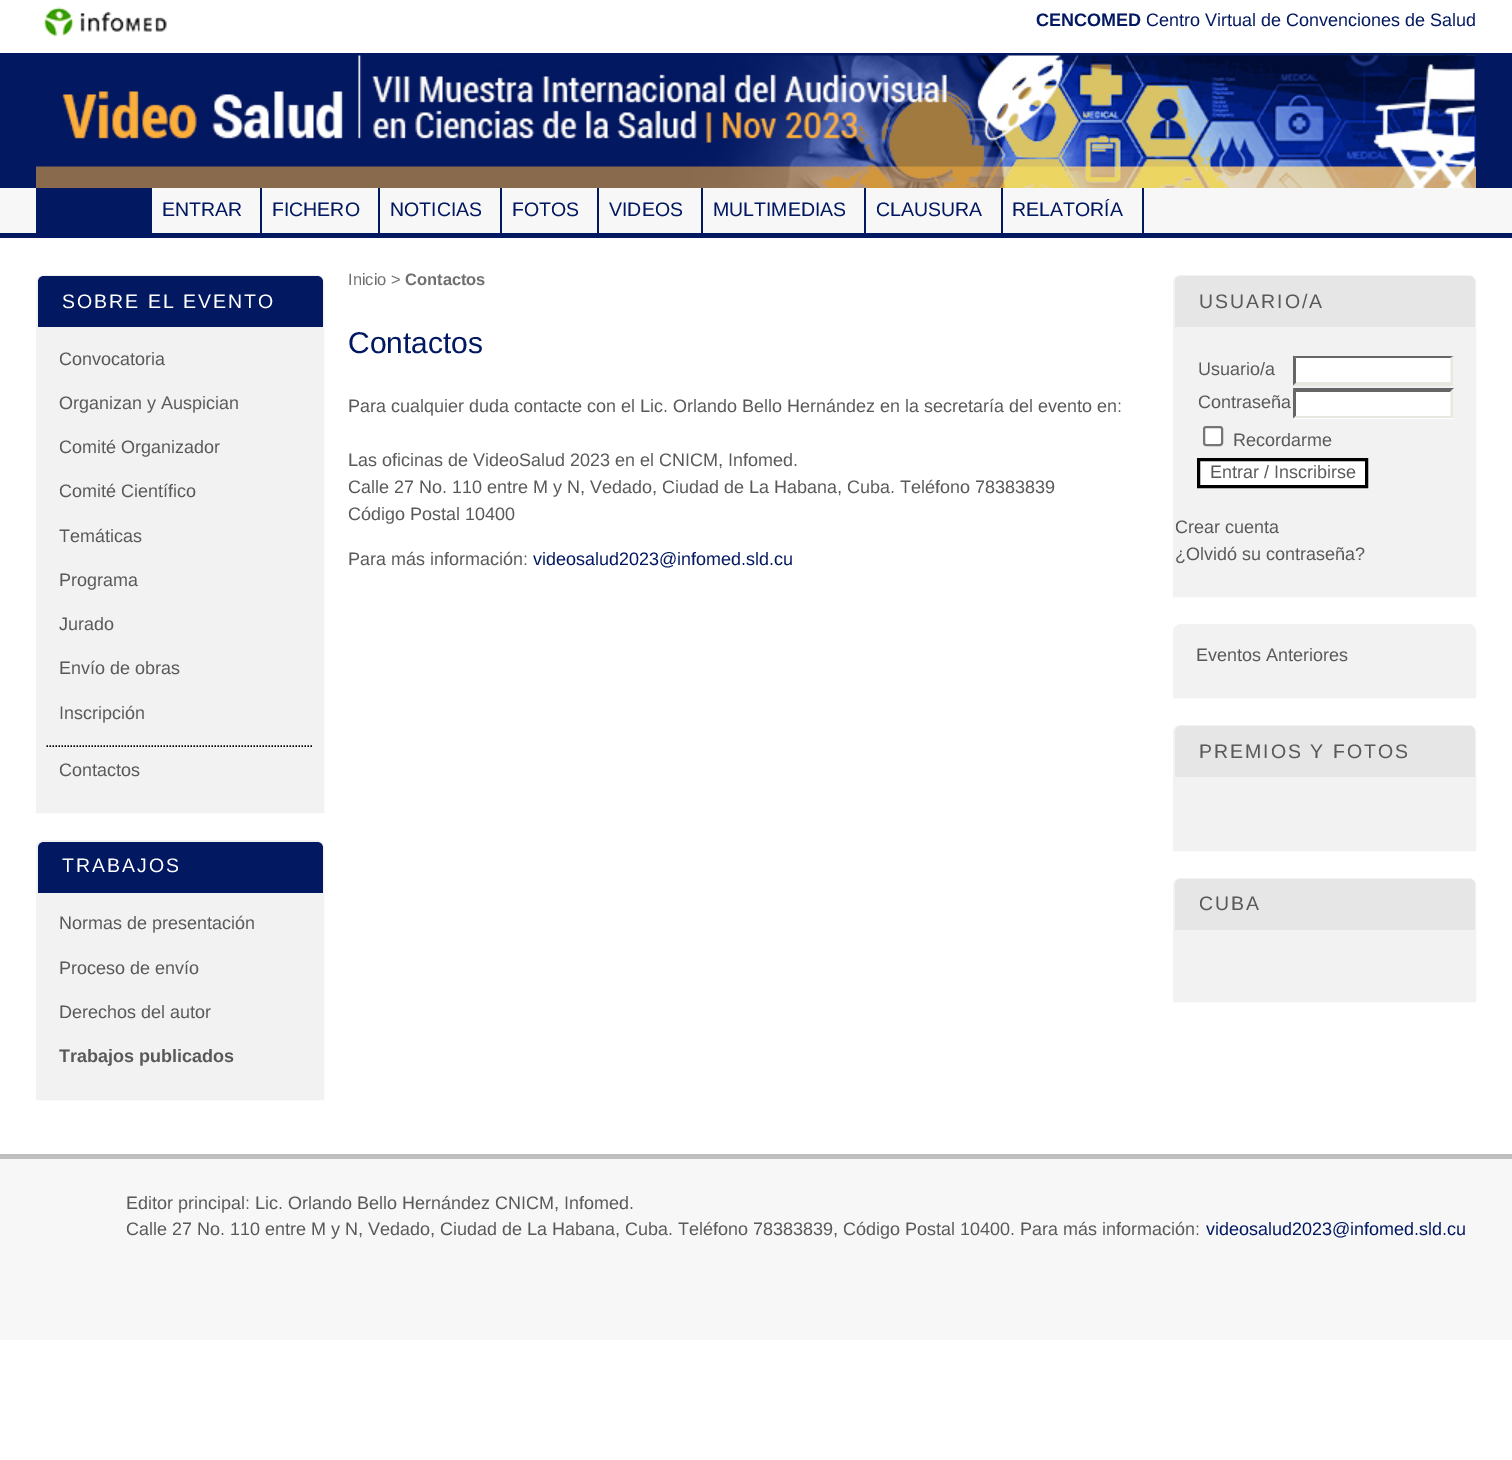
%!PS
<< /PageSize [1512 1460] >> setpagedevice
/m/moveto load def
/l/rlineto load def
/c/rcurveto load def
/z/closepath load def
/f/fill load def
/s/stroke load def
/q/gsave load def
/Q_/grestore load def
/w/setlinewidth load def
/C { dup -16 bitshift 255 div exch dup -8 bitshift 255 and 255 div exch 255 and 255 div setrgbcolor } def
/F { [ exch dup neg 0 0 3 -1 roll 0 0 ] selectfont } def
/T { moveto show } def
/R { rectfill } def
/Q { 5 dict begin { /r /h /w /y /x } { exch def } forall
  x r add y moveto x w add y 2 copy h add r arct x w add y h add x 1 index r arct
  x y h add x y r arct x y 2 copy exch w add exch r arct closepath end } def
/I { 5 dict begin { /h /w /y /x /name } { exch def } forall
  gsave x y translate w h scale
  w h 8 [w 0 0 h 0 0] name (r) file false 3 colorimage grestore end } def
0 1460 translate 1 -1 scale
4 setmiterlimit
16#FFFFFF C
0 0 1512 1460 R
(1.rgb) 44 7 123 30 I
/LiberationSans-Bold 18 F
16#021861 C
(CENCOMED) 1036 26 T
/LiberationSans-Regular 18 F
(Centro Virtual de Convenciones de Salud) 1146 26 T
0 53 1512 135 R
(3.rgb) 1326 55 150 1 I
(2.rgb) 36 55 1440 133 I
16#F7F7F7 C
0 188 1512 45 R
16#021861 C
0 233 1512 5 R
36 188 116 45 R
260 188 2 45 R
/LiberationSans-Regular 19.5 F
(ENTRAR) 162 216 T
378 188 2 45 R
(FICHERO) 272 216 T
500 188 2 45 R
(NOTICIAS) 390 216 T
597 188 2 45 R
(FOTOS) 512 216 T
701 188 2 45 R
(VIDEOS) 609 216 T
864 188 2 45 R
(MULTIMEDIAS) 713 216 T
1001 188 2 45 R
(CLAUSURA) 876 216 T
1142 188 2 45 R
(RELATORÍA) 1012 216 T
/LiberationSans-Regular 16.5 F
16#707070 C
(Inicio >) 348 285 T
/LiberationSans-Bold 16.5 F
(Contactos) 405 285 T
/LiberationSans-Regular 30 F
16#021861 C
(Contactos) 348 353 T
/LiberationSans-Regular 18 F
16#595959 C
(Para cualquier duda contacte con el Lic. Orlando Bello Hernández en la secretaría del evento en:) 348 412 T
(Las oficinas de VideoSalud 2023 en el CNICM, Infomed.) 348 466 T
(Calle 27 No. 110 entre M y N, Vedado, Ciudad de La Habana, Cuba. Teléfono 78383839) 348 493 T
(Código Postal 10400) 348 520 T
(Para más información:) 348 565 T
16#021861 C
(videosalud2023@infomed.sld.cu) 533 565 T
16#F2F2F2 C
44 276 m 272 0 l 4 0 7 3 7 7 c 0 529 l -286 0 l 0 -529 l 0 -4 3 -7 7 -7 c z q f Q_
2 w
s
16#021861 C
44 276 m 273 0 l 3.5 0 6 2.5 6 6 c 0 45 l -285 0 l 0 -45 l 0 -3.5 2.5 -6 6 -6 c z f
/LiberationSans-Regular 19.5 F
16#FFFFFF C
62 308 m 2 0 (SOBRE EL EVENTO) ashow
/LiberationSans-Regular 18 F
16#595959 C
(Convocatoria) 59 365 T
(Organizan y Auspician) 59 409 T
(Comité Organizador) 59 453 T
(Comité Científico) 59 497 T
(Temáticas) 59 542 T
(Programa) 59 586 T
(Jurado) 59 630 T
(Envío de obras) 59 674 T
(Inscripción) 59 719 T
16#000000 C
1.5 w
[1.5 1.5] 0 setdash
46.5 746 m 267 0 l s
16#595959 C
(Contactos) 59 776 T
16#F2F2F2 C
44 841 m 272 0 l 4 0 7 3 7 7 c 0 251 l -286 0 l 0 -251 l 0 -4 3 -7 7 -7 c z q f Q_
2 w
[] 0 setdash
s
16#021861 C
44 842 m 273 0 l 3.5 0 6 2.5 6 6 c 0 45 l -285 0 l 0 -45 l 0 -3.5 2.5 -6 6 -6 c z f
/LiberationSans-Regular 19.5 F
16#FFFFFF C
62 872 m 2 0 (TRABAJOS) ashow
/LiberationSans-Regular 18 F
16#595959 C
(Normas de presentación) 59 929 T
(Proceso de envío) 59 974 T
(Derechos del autor) 59 1018 T
/LiberationSans-Bold 18 F
(Trabajos publicados) 59 1062 T
16#F2F2F2 C
1181 276 m 287 0 l 4 0 7 3 7 7 c 0 313 l -301 0 l 0 -313 l 0 -4 3 -7 7 -7 c z q f Q_
s
16#E6E6E6 C
1181 276 m 288 0 l 3.5 0 6 2.5 6 6 c 0 45 l -300 0 l 0 -45 l 0 -3.5 2.5 -6 6 -6 c z f
/LiberationSans-Regular 19.5 F
16#595959 C
1199 308 m 2 0 (USUARIO/A) ashow
/LiberationSans-Regular 18 F
(Usuario/a) 1198 375 T
16#FFFFFF C
1293 356 161 30 R
16#666666 C
1293 356 m 161 0 l -4 2 l -154 0 l z f
16#E8E8E1 C
1453.5 355.5 m 0 30 l -3 -3 l 0 -24 l z f
1454 386 m -161 0 l 3 -4 l 154 0 l z f
16#666666 C
1293 385.5 m 0 -30 l 3 3 l 0 24 l z f
16#595959 C
(Contraseña) 1198 408 T
16#FFFFFF C
1293 389 161 30 R
16#666666 C
1293 388 m 161 0 l -4 4 l -154 0 l z f
16#E8E8E1 C
1453.5 388.5 m 0 30 l -3 -3 l 0 -24 l z f
1454 418 m -161 0 l 3 -2 l 154 0 l z f
16#666666 C
1293 418.5 m 0 -30 l 3 3 l 0 24 l z f
16#FFFFFF C
1204 427 18 18 2 Q q f Q_
16#767676 C
s
16#595959 C
(Recordarme) 1233 446 T
16#FFFFFF C
1198.5 459.5 m 168 0 l 0 27 l -168 0 l z q f Q_
16#000000 C
3 w
s
16#595959 C
(Entrar / Inscribirse) 1210 478 T
(Crear cuenta) 1175 533 T
(¿Olvidó su contraseña?) 1175 560 T
16#F2F2F2 C
1181 625 m 287 0 l 4 0 7 3 7 7 c 0 65 l -301 0 l 0 -65 l 0 -4 3 -7 7 -7 c z q f Q_
2 w
s
16#595959 C
(Eventos Anteriores) 1196 661 T
16#F2F2F2 C
1181 726 m 287 0 l 4 0 7 3 7 7 c 0 117 l -301 0 l 0 -117 l 0 -4 3 -7 7 -7 c z q f Q_
s
16#E6E6E6 C
1181 726 m 288 0 l 3.5 0 6 2.5 6 6 c 0 45 l -300 0 l 0 -45 l 0 -3.5 2.5 -6 6 -6 c z f
/LiberationSans-Regular 19.5 F
16#595959 C
1199 758 m 2 0 (PREMIOS Y FOTOS) ashow
16#F2F2F2 C
1181 879 m 287 0 l 4 0 7 3 7 7 c 0 115 l -301 0 l 0 -115 l 0 -4 3 -7 7 -7 c z q f Q_
s
16#E6E6E6 C
1181 879 m 288 0 l 3.5 0 6 2.5 6 6 c 0 45 l -300 0 l 0 -45 l 0 -3.5 2.5 -6 6 -6 c z f
16#595959 C
1199 910 m 2 0 (CUBA) ashow
16#F7F7F7 C
0 1159 1512 181 R
16#BFBFBF C
0 1154 1512 5 R
/LiberationSans-Regular 18 F
16#595959 C
(Editor principal: Lic. Orlando Bello Hernández CNICM, Infomed.) 126 1209 T
(Calle 27 No. 110 entre M y N, Vedado, Ciudad de La Habana, Cuba. Teléfono 78383839, Código Postal 10400. Para más información:) 126 1235 T
16#021861 C
(videosalud2023@infomed.sld.cu) 1206 1235 T
showpage
